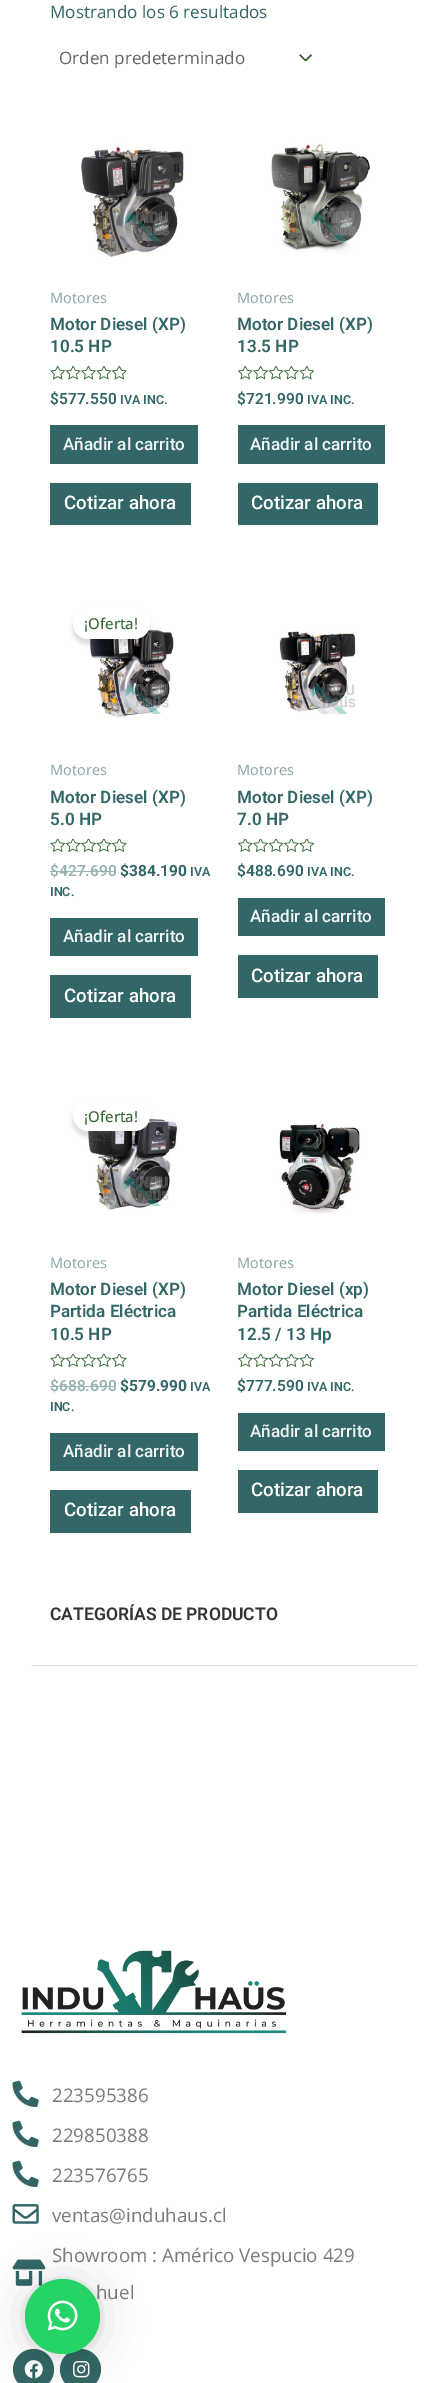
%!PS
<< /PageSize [448 2383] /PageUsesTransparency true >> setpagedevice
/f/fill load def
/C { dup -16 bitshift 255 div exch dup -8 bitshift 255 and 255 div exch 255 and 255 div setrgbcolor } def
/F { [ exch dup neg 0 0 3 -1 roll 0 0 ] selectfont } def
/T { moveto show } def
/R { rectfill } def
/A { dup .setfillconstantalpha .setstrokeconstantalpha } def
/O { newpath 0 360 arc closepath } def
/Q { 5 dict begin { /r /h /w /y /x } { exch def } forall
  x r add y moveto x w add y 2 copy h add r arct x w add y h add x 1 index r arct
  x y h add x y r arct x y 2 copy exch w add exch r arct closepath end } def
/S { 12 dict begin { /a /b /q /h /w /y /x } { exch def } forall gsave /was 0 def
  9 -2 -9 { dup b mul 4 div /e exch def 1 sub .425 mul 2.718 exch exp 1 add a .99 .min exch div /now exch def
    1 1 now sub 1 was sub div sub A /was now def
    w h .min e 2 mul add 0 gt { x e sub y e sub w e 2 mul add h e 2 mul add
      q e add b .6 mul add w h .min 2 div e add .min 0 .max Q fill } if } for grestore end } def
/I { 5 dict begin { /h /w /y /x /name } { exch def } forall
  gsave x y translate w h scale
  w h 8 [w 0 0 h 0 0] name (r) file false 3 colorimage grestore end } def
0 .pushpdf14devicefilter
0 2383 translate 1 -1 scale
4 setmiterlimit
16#FFFFFF C
0 0 448 2383 R
16#E3E3E3 C
31 1665 387 1 R
/OpenSans-Regular 17.1 F
16#336666 C
(Mostrando los 6 resultados) 50 18 T
(1.rgb) 299 54 13 7 I
16#666666 C
(Orden predeterminado) 59 64 T
(2.rgb) 81 143 104 114 I
/OpenSans-Regular 14.5 F
16#85A3A3 C
(Motores) 50 303 T
/Roboto-SemiBold 17.1 F
16#336666 C
(Motor Diesel \(XP\)) 50 330 T
(10.5 HP) 50 352 T
(3.rgb) 50 366 77 14 I
/Roboto-SemiBold 15.5 F
($577.550) 50 404 T
/Roboto-SemiBold 12.5 F
(IVA INC.) 120 404 T
50 425 148 39 R
/Roboto-Medium 17.1 F
16#F2F5F7 C
(Añadir al carrito) 63 450 T
16#336666 C
50 483 141 42 R
/Roboto-Medium 18.75 F
16#FFFFFF C
(Cotizar ahora) 64 509 T
(4.rgb) 271 143 101 110 I
/OpenSans-Regular 14.5 F
16#85A3A3 C
(Motores) 237 303 T
/Roboto-SemiBold 17.1 F
16#336666 C
(Motor Diesel \(XP\)) 237 330 T
(13.5 HP) 237 352 T
(5.rgb) 238 366 77 14 I
/Roboto-SemiBold 15.5 F
($721.990) 237 404 T
/Roboto-SemiBold 12.5 F
(IVA INC.) 307 404 T
238 425 147 39 R
/Roboto-Medium 17.1 F
16#F2F5F7 C
(Añadir al carrito) 250 450 T
16#336666 C
238 483 140 42 R
/Roboto-Medium 18.75 F
16#FFFFFF C
(Cotizar ahora) 251 509 T
(6.rgb) 89 625 86 93 I
16#000000 C
73 613 77 31 15.5 2.5 .15 S
16#FFFFFF C
73 608 77 31 15.5 Q f
/OpenSans-Medium 15 F
16#336633 C
(¡Oferta!) 84 629 T
/OpenSans-Regular 14.5 F
16#85A3A3 C
(Motores) 50 775 T
/Roboto-SemiBold 17.1 F
16#336666 C
(Motor Diesel \(XP\)) 50 803 T
(5.0 HP) 50 825 T
(7.rgb) 50 839 77 13 I
/Roboto-SemiBold 15.5 F
16#99B3B3 C
($427.690) 50 876 T
50 871 66 1 R
/Roboto-Bold 15.5 F
16#336666 C
($384.190) 120 876 T
/Roboto-SemiBold 12.5 F
(IVA) 190 876 T
(INC.) 50 896 T
50 918 148 38 R
/Roboto-Medium 17.1 F
16#F2F5F7 C
(Añadir al carrito) 63 942 T
16#336666 C
50 975 141 43 R
/Roboto-Medium 18.75 F
16#FFFFFF C
(Cotizar ahora) 64 1002 T
(8.rgb) 279 631 77 83 I
/OpenSans-Regular 14.5 F
16#85A3A3 C
(Motores) 237 775 T
/Roboto-SemiBold 17.1 F
16#336666 C
(Motor Diesel \(XP\)) 237 803 T
(7.0 HP) 237 825 T
(9.rgb) 238 839 77 13 I
/Roboto-SemiBold 15.5 F
($488.690) 237 876 T
/Roboto-SemiBold 12.5 F
(IVA INC.) 307 876 T
238 898 147 38 R
/Roboto-Medium 17.1 F
16#F2F5F7 C
(Añadir al carrito) 250 922 T
16#336666 C
238 955 140 43 R
/Roboto-Medium 18.75 F
16#FFFFFF C
(Cotizar ahora) 251 982 T
(10.rgb) 87 1113 91 97 I
16#000000 C
73 1105 77 31 15.5 2.5 .15 S
16#FFFFFF C
73 1100 77 31 15.5 Q f
/OpenSans-Medium 15 F
16#336633 C
(¡Oferta!) 84 1122 T
/OpenSans-Regular 14.5 F
16#85A3A3 C
(Motores) 50 1268 T
/Roboto-SemiBold 17.1 F
16#336666 C
(Motor Diesel \(XP\)) 50 1295 T
(Partida Eléctrica) 50 1317 T
(10.5 HP) 50 1340 T
(7.rgb) 50 1354 77 13 I
/Roboto-SemiBold 15.5 F
16#99B3B3 C
($688.690) 50 1391 T
50 1386 66 1 R
/Roboto-Bold 15.5 F
16#336666 C
($579.990) 120 1391 T
/Roboto-SemiBold 12.5 F
(IVA) 190 1391 T
(INC.) 50 1411 T
50 1433 148 38 R
/Roboto-Medium 17.1 F
16#F2F5F7 C
(Añadir al carrito) 63 1457 T
16#336666 C
50 1490 141 43 R
/Roboto-Medium 18.75 F
16#FFFFFF C
(Cotizar ahora) 64 1516 T
(11.rgb) 279 1123 82 91 I
/OpenSans-Regular 14.5 F
16#85A3A3 C
(Motores) 237 1268 T
/Roboto-SemiBold 17.1 F
16#336666 C
(Motor Diesel \(xp\)) 237 1295 T
(Partida Eléctrica) 237 1317 T
(12.5 / 13 Hp) 237 1340 T
(9.rgb) 238 1354 77 13 I
/Roboto-SemiBold 15.5 F
($777.590) 237 1391 T
/Roboto-SemiBold 12.5 F
(IVA INC.) 307 1391 T
238 1413 147 38 R
/Roboto-Medium 17.1 F
16#F2F5F7 C
(Añadir al carrito) 250 1437 T
16#336666 C
238 1470 140 43 R
/Roboto-Medium 18.75 F
16#FFFFFF C
(Cotizar ahora) 251 1496 T
/Roboto-SemiBold 17.5 F
16#333333 C
(CATEGORÍAS DE PRODUCTO) 50 1620 T
(12.rgb) 21 1950 266 84 I
(13.rgb) 12 2080 27 27 I
/OpenSans-Regular 18.75 F
16#7A7A7A C
(223595386) 52 2102 T
(13.rgb) 12 2120 27 27 I
(229850388) 52 2142 T
(13.rgb) 12 2160 27 27 I
(223576765) 52 2182 T
(14.rgb) 12 2204 27 20 I
(ventas@induhaus.cl) 52 2222 T
(15.rgb) 12 2259 34 27 I
(Showroom : Américo Vespucio 429) 52 2262 T
(huel) 96 2299 T
16#336666 C
33.5 2369.5 20.5 O f
(16.rgb) 24 2360 19 19 I
80.5 2369.5 20.5 O f
(17.rgb) 73 2361 17 17 I
16#000000 C
25 2281 75 75 37.5 20 .16 S
25 2280 75 75 37.5 4 .06 S
16#25D366 C
62.5 2316.5 37.5 O f
(18.rgb) 47 2300 31 31 I
.poppdf14devicefilter showpage
